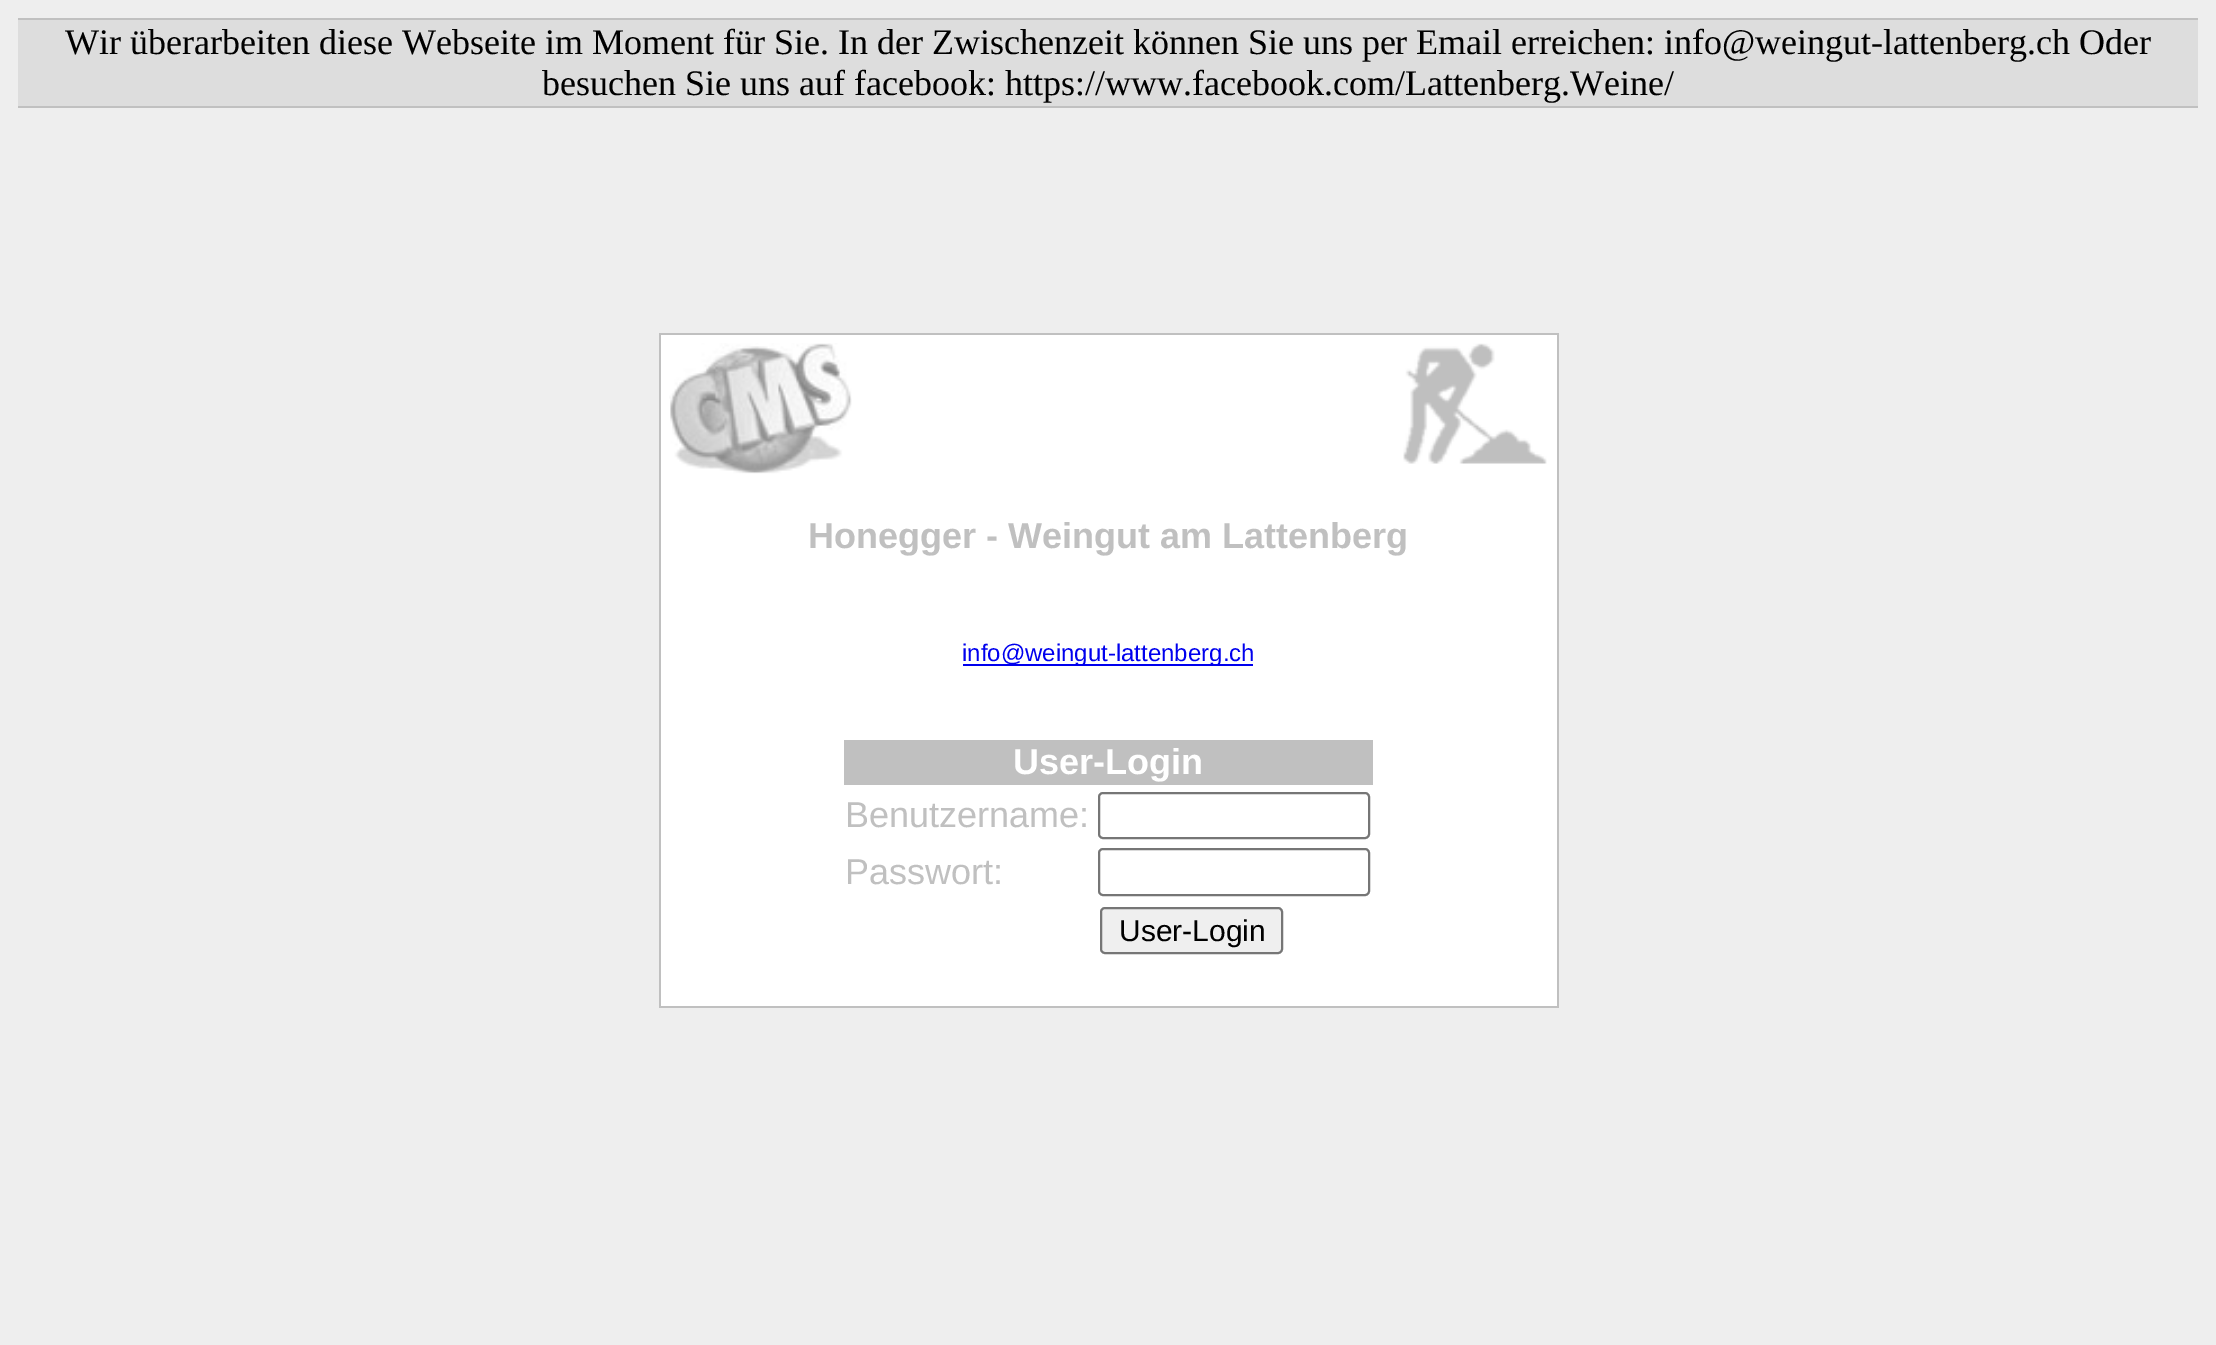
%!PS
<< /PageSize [2216 1345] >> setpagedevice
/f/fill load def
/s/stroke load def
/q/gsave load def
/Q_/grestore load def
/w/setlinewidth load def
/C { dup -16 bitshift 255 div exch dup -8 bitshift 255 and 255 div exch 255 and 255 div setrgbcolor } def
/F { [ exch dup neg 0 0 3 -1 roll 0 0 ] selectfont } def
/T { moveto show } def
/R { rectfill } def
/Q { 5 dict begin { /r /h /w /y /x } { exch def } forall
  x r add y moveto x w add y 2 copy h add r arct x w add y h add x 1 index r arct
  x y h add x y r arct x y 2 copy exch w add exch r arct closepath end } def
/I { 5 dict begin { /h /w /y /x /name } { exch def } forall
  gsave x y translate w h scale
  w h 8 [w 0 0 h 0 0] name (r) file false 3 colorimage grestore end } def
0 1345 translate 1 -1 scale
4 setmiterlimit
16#EEEEEE C
0 0 2216 1345 R
16#DDDDDD C
18 20 2180 86 R
16#C0C0C0 C
18 18 2180 2 R
18 106 2180 2 R
/LiberationSerif-Regular 36 F
16#000000 C
(Wir überarbeiten diese Webseite im Moment für Sie. In der Zwischenzeit können Sie uns per Email erreichen: info@weingut-lattenberg.ch Oder) 65 54 T
(besuchen Sie uns auf facebook: https://www.facebook.com/Lattenberg.Weine/) 542 95 T
16#FFFFFF C
661 335 896 671 R
16#C0C0C0 C
659 333 900 2 R
1557 333 2 675 R
659 1006 900 2 R
659 333 2 675 R
(1.rgb) 669 343 183 131 I
(2.rgb) 1403 343 144 121 I
/LiberationSans-Bold 36 F
(Honegger - Weingut am Lattenberg) 808 548 T
16#0000EE C
963 664 290 2 R
/LiberationSans-Regular 24 F
(info@weingut-lattenberg.ch) 962 661 T
16#C0C0C0 C
844 740 529 45 R
/LiberationSans-Bold 36 F
16#FFFFFF C
(User-Login) 1013 774 T
/LiberationSans-Regular 36 F
16#C0C0C0 C
(Benutzername:) 845 827 T
16#767676 C
2 w
1099 793 270 45 4 Q s
16#C0C0C0 C
(Passwort:) 845 884 T
16#767676 C
1099 849 270 46 4 Q s
16#EFEFEF C
1101 908 181 45 4 Q q f Q_
16#767676 C
s
/LiberationSans-Regular 30 F
16#000000 C
(User-Login) 1119 941 T
showpage
